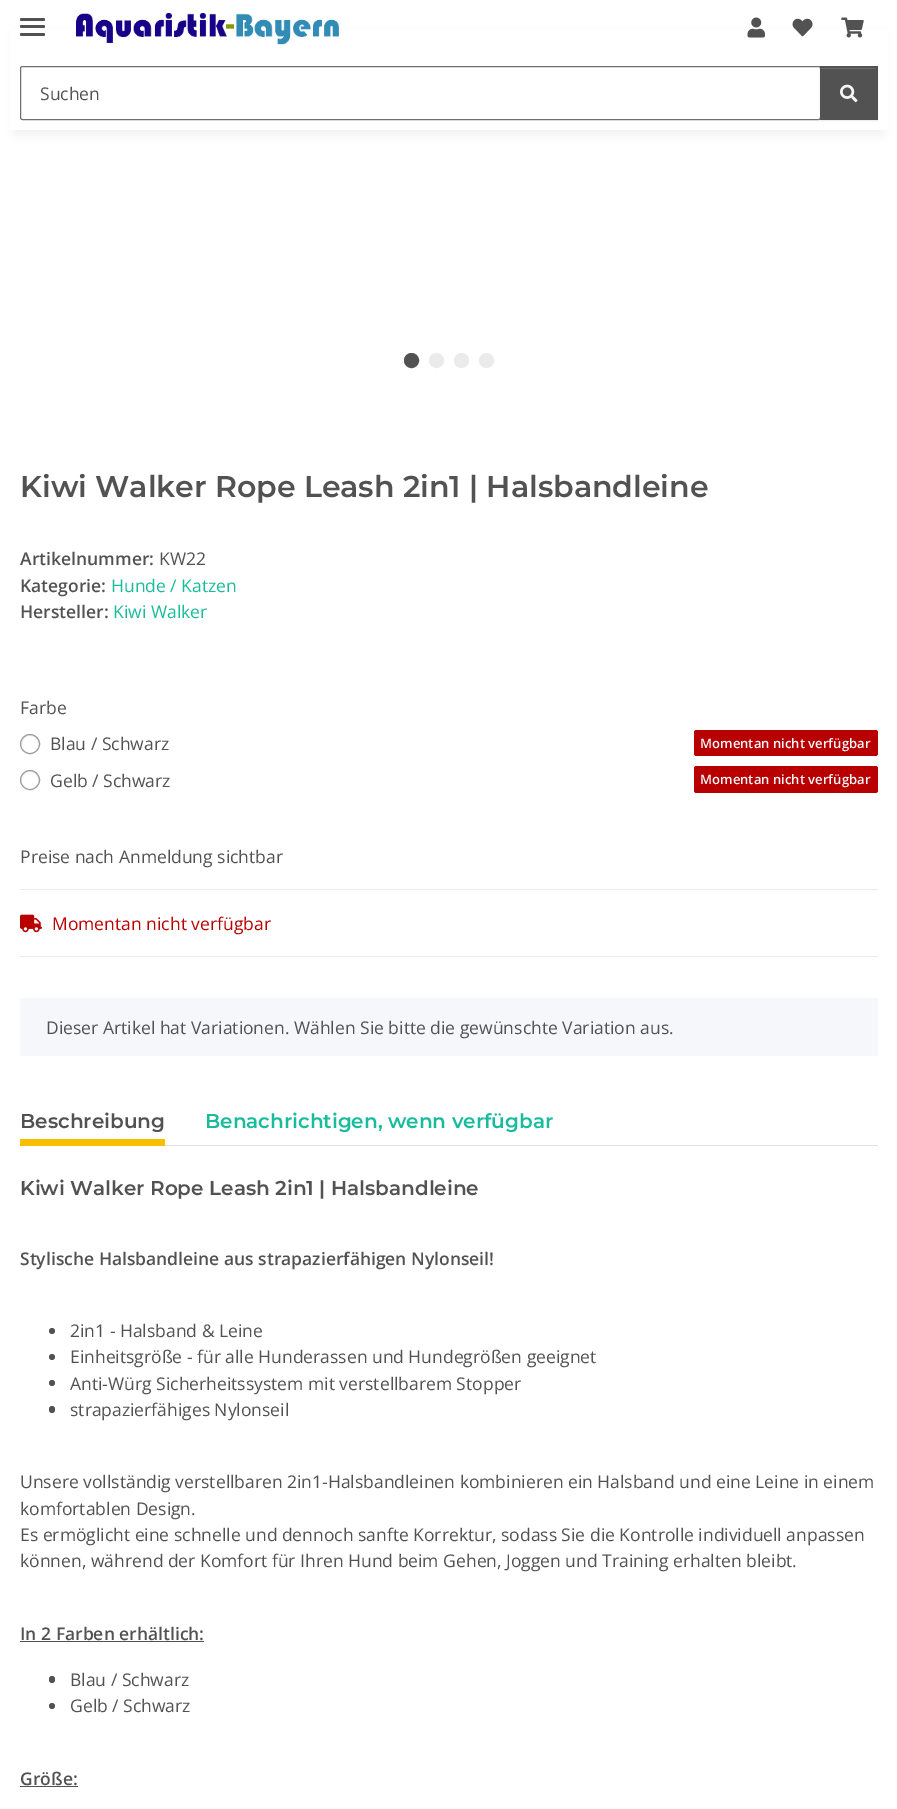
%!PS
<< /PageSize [897 1809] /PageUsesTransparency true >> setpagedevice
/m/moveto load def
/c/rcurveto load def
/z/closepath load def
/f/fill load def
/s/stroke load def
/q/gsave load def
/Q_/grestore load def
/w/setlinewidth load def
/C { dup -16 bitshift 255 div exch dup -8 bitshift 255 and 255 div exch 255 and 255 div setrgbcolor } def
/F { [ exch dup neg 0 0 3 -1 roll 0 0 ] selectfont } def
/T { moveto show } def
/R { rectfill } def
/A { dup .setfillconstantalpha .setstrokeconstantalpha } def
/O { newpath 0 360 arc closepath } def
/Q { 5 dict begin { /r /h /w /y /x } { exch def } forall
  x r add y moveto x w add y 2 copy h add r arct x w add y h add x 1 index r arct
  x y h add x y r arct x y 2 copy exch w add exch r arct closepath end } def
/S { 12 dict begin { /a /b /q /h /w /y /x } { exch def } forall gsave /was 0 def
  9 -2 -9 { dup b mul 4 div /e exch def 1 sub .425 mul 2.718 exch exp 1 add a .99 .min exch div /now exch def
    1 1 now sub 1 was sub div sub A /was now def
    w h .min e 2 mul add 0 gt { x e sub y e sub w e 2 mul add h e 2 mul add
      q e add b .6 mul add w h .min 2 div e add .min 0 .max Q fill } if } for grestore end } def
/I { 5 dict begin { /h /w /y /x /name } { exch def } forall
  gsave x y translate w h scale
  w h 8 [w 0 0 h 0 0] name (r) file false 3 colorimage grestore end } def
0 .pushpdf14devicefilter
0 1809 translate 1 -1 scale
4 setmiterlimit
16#FFFFFF C
0 0 897 1809 R
16#000000 C
15 35 868 100 0 5.5 .06 S
16#FFFFFF C
10 30 878 100 R
16#525252 C
20 25 25 3 1.5 Q f
20 18 25 3 1.5 Q f
20 33 25 3 1.5 Q f
(1.rgb) 76 13 263 32 I
(2.rgb) 747 17 18 21 I
(3.rgb) 792 18 21 19 I
(4.rgb) 841 17 23 21 I
16#707070 C
20.5 66.5 800 53 2 Q s
/OpenSans-Regular 17.5 F
16#525252 C
(Suchen) 40 100 T
16#000000 C
820 68 58 53 0 .5 .07 S
16#525252 C
820 66 58 54 R
16#6C6C6C C
821 68 55 1 R
(5.rgb) 840 84 18 19 I
16#525252 C
411.5 360.5 6 O q f Q_
3 w
s
16#EBEBEB C
436.5 360.5 6 O q f Q_
s
461.5 360.5 6 O q f Q_
s
486.5 360.5 6 O q f Q_
s
/Montserrat-SemiBold 30 F
16#525252 C
(Kiwi Walker Rope Leash 2in1 | Halsbandleine) 20 497 T
/OpenSans-SemiBold 17.5 F
(Artikelnummer:) 20 565 T
/OpenSans-Regular 17.5 F
(KW22) 159 565 T
/OpenSans-SemiBold 17.5 F
(Kategorie:) 20 592 T
/OpenSans-Regular 17.5 F
16#18BC9C C
(Hunde / Katzen) 111 592 T
/OpenSans-SemiBold 17.5 F
16#525252 C
(Hersteller:) 20 618 T
/OpenSans-Regular 17.5 F
16#18BC9C C
(Kiwi Walker) 113 618 T
16#525252 C
(Farbe) 20 714 T
16#ECECEC C
30 736 m 7 0 9.5 7.5 7.5 13 c 1.5 -2.5 2 -5.5 1 -8.5 c -5.5 -12 -23 -2 -16 8.5 c -2 -5.5 .5 -13 7.5 -13 c z f
16#9B9B9B C
1 w
30 744 9.5 O s
16#525252 C
(Blau / Schwarz) 50 750 T
16#B90000 C
694 730 184 26 2.5 Q f
/OpenSans-SemiBold 13.1 F
16#F5F7FA C
(Momentan nicht verfügbar) 700 748 T
16#ECECEC C
30 772 m 7 0 9.5 7.5 7.5 13 c 1.5 -2.5 2 -5.5 1 -8.5 c -5.5 -12 -23 -2 -16 8.5 c -2 -5.5 .5 -13 7.5 -13 c z f
16#9B9B9B C
30 780 9.5 O s
/OpenSans-Regular 17.5 F
16#525252 C
(Gelb / Schwarz) 50 787 T
16#B90000 C
694 766 184 27 2.5 Q f
/OpenSans-SemiBold 13.1 F
16#F5F7FA C
(Momentan nicht verfügbar) 700 784 T
/OpenSans-Regular 17.5 F
16#525252 C
(Preise nach Anmeldung sichtbar) 20 863 T
16#EBEBEB C
20 889 858 1 R
20 956 858 1 R
(6.rgb) 20 914 22 19 I
16#B90000 C
(Momentan nicht verfügbar) 52 930 T
16#F5F7FA C
20 998 858 58 2.5 Q f
16#525252 C
(Dieser Artikel hat Variationen. Wählen Sie bitte die gewünschte Variation aus.) 46 1034 T
16#DEE2E6 C
165 1145 713 1 R
/Montserrat-SemiBold 20 F
16#525252 C
(Beschreibung) 20 1128 T
16#F8BF00 C
20 1139 145 7 R
16#18BC9C C
(Benachrichtigen, wenn verfügbar) 205 1128 T
16#525252 C
(Kiwi Walker Rope Leash 2in1 | Halsbandleine) 20 1195 T
/OpenSans-SemiBold 17.5 F
(Stylische Halsbandleine aus strapazierfähigen Nylonseil!) 20 1265 T
52 1331 3 O f
/OpenSans-Regular 17.5 F
(2in1 - Halsband & Leine) 70 1337 T
52 1357 3 O f
(Einheitsgröße - für alle Hunderassen und Hundegrößen geeignet) 70 1363 T
52 1383 3 O f
(Anti-Würg Sicherheitssystem mit verstellbarem Stopper) 70 1390 T
49 1406 6 7 3 Q f
(strapazierfähiges Nylonseil) 70 1416 T
(Unsere vollständig verstellbaren 2in1-Halsbandleinen kombinieren ein Halsband und eine Leine in einem) 20 1488 T
(komfortablen Design.) 20 1515 T
(Es ermöglicht eine schnelle und dennoch sanfte Korrektur, sodass Sie die Kontrolle individuell anpassen) 20 1541 T
(können, während der Komfort für Ihren Hund beim Gehen, Joggen und Training erhalten bleibt.) 20 1567 T
/OpenSans-SemiBold 17.5 F
(In 2 Farben erhältlich:) 20 1640 T
20 1641 184 1 R
49 1676 6 7 3 Q f
/OpenSans-Regular 17.5 F
(Blau / Schwarz) 70 1686 T
52 1706 3 O f
(Gelb / Schwarz) 70 1712 T
/OpenSans-SemiBold 17.5 F
(Größe:) 20 1785 T
20 1786 58 1 R
.poppdf14devicefilter showpage
